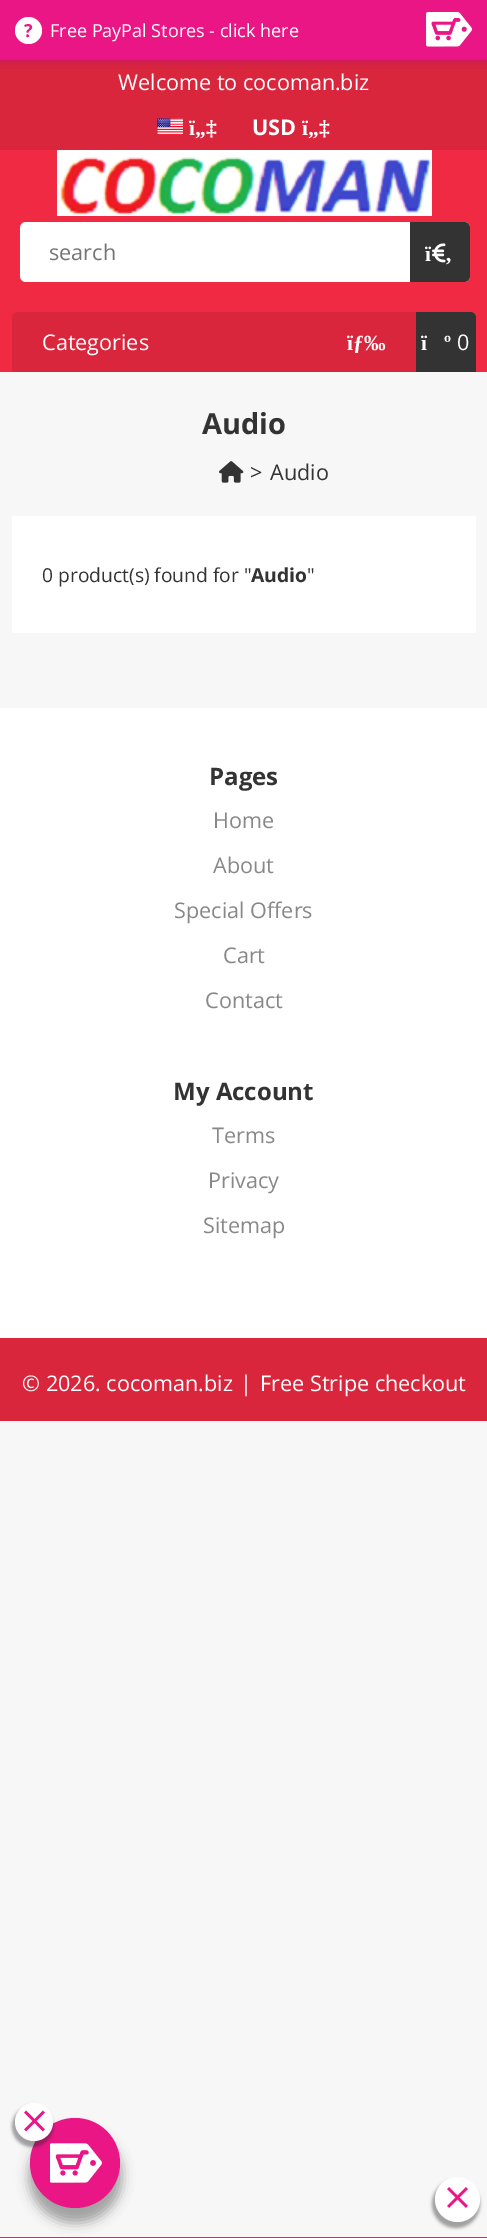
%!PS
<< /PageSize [487 2238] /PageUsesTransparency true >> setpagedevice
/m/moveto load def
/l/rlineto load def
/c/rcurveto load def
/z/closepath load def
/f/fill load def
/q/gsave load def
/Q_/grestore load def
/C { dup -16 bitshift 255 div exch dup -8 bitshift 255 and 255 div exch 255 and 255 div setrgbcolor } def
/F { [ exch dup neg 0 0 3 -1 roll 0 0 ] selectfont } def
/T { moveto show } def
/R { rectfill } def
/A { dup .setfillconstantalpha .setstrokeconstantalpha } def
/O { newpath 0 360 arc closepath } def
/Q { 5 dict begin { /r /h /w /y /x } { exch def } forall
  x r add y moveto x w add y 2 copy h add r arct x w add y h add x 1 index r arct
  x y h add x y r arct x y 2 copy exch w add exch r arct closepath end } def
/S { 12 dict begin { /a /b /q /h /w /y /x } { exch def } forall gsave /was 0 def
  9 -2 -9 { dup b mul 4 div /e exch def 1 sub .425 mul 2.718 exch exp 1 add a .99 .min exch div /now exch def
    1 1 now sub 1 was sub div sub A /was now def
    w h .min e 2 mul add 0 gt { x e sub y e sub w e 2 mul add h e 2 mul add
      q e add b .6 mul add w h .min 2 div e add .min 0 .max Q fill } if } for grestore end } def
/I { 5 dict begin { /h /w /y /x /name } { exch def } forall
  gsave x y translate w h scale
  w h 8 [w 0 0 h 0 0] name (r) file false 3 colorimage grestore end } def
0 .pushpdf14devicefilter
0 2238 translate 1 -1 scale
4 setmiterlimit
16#F7F7F7 C
0 0 487 2238 R
16#D9263C C
0 60 487 90 R
16#C51170 C
0 0 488 60 0 4 1 S
16#EA1686 C
0 0 487 60 R
16#FFFFFF C
28.5 30.5 13.5 O f
/OpenSans-Bold 18 F
16#EA1686 C
(?) 24 37 T
/OpenSans-Regular 18 F
16#FFFFFF C
(Free PayPal Stores - click here) 50 37 T
(1.rgb) 426 12 47 35 I
/OpenSans-Regular 21.6 F
(Welcome to cocoman.biz) 118 90 T
(2.rgb) 157 118 26 17 I
/LiberationSerif-Bold 21.6 F
(ï„‡) 189 135 T
/OpenSans-Bold 21.6 F
(USD) 252 135 T
/LiberationSerif-Bold 21.6 F
(ï„‡) 302 135 T
16#F12A43 C
0 150 487 222 R
(3.rgb) 57 150 375 66 I
16#FFFFFF C
20 222 450 60 6 Q f
q
50 237 345 29 rectclip
/OpenSans-Regular 21.6 F
16#757575 C
(search) 49 260 T
Q_
16#333333 C
410 222 m 54 0 l 3.5 0 6 2.5 6 6 c 0 48 l 0 3.5 -2.5 6 -6 6 c -54 0 l z f
16#FFFFFF C
(ï) 425 261 T
(4.rgb) 432 243 14 20 I
(‚) 445 261 T
16#D9263C C
18 312 m 452 0 l 3.5 0 6 2.5 6 6 c 0 54 l -464 0 l 0 -54 l 0 -3.5 2.5 -6 6 -6 c z f
/OpenSans-Regular 21.6 F
16#FFFFFF C
(Categories) 42 350 T
/LiberationSerif-Bold 21.6 F
(ïƒ‰) 347 350 T
16#333333 C
416 312 m 54 0 l 3.5 0 6 2.5 6 6 c 0 54 l -60 0 l z f
16#FFFFFF C
(ï) 421 350 T
(º) 444 350 T
/OpenSans-Regular 21.6 F
(0) 457 350 T
/OpenSans-Bold 29 F
16#333333 C
(Audio) 202 434 T
(5.rgb) 219 461 25 22 I
/OpenSans-Regular 21.6 F
(>) 250 480 T
(Audio) 270 480 T
16#FFFFFF C
12 516 464 117 R
/OpenSans-Regular 19.25 F
16#333333 C
(0 product\(s\) found for ") 42 582 T
/OpenSans-Bold 19.25 F
(Audio) 251 582 T
/OpenSans-Regular 19.25 F
(") 307 582 T
16#FFFFFF C
0 708 487 630 R
/OpenSans-Bold 24 F
16#333333 C
(Pages) 209 785 T
/OpenSans-Regular 21.6 F
16#888888 C
(Home) 213 828 T
(About) 213 873 T
(Special Offers) 174 918 T
(Cart) 223 963 T
(Contact) 205 1008 T
/OpenSans-Bold 24 F
16#333333 C
(My Account) 173 1100 T
/OpenSans-Regular 21.6 F
16#888888 C
(Terms) 212 1143 T
(Privacy) 208 1188 T
(Sitemap) 203 1233 T
16#D9263C C
0 1338 487 83 R
16#FFFFFF C
(© 2026. cocoman.biz) 22 1391 T
(|) 240 1391 T
(Free Stripe checkout) 260 1391 T
16#212121 C
29 2130 93 93 46.5 6 .4 S
16#EA1686 C
75 2163 45 O f
(7.rgb) 50 2143 52 40 I
16#212121 C
12 2106 41 41 20.5 1.5 .4 S
16#FFFFFF C
34 2122 19 O f
(6.rgb) 24 2110 21 22 I
16#EA1686 C
0 2237 487 1 R
16#212121 C
432 2180 48 48 24 1.5 .4 S
16#FFFFFF C
457.5 2199.5 22.5 O f
(8.rgb) 447 2187 21 21 I
.poppdf14devicefilter showpage
